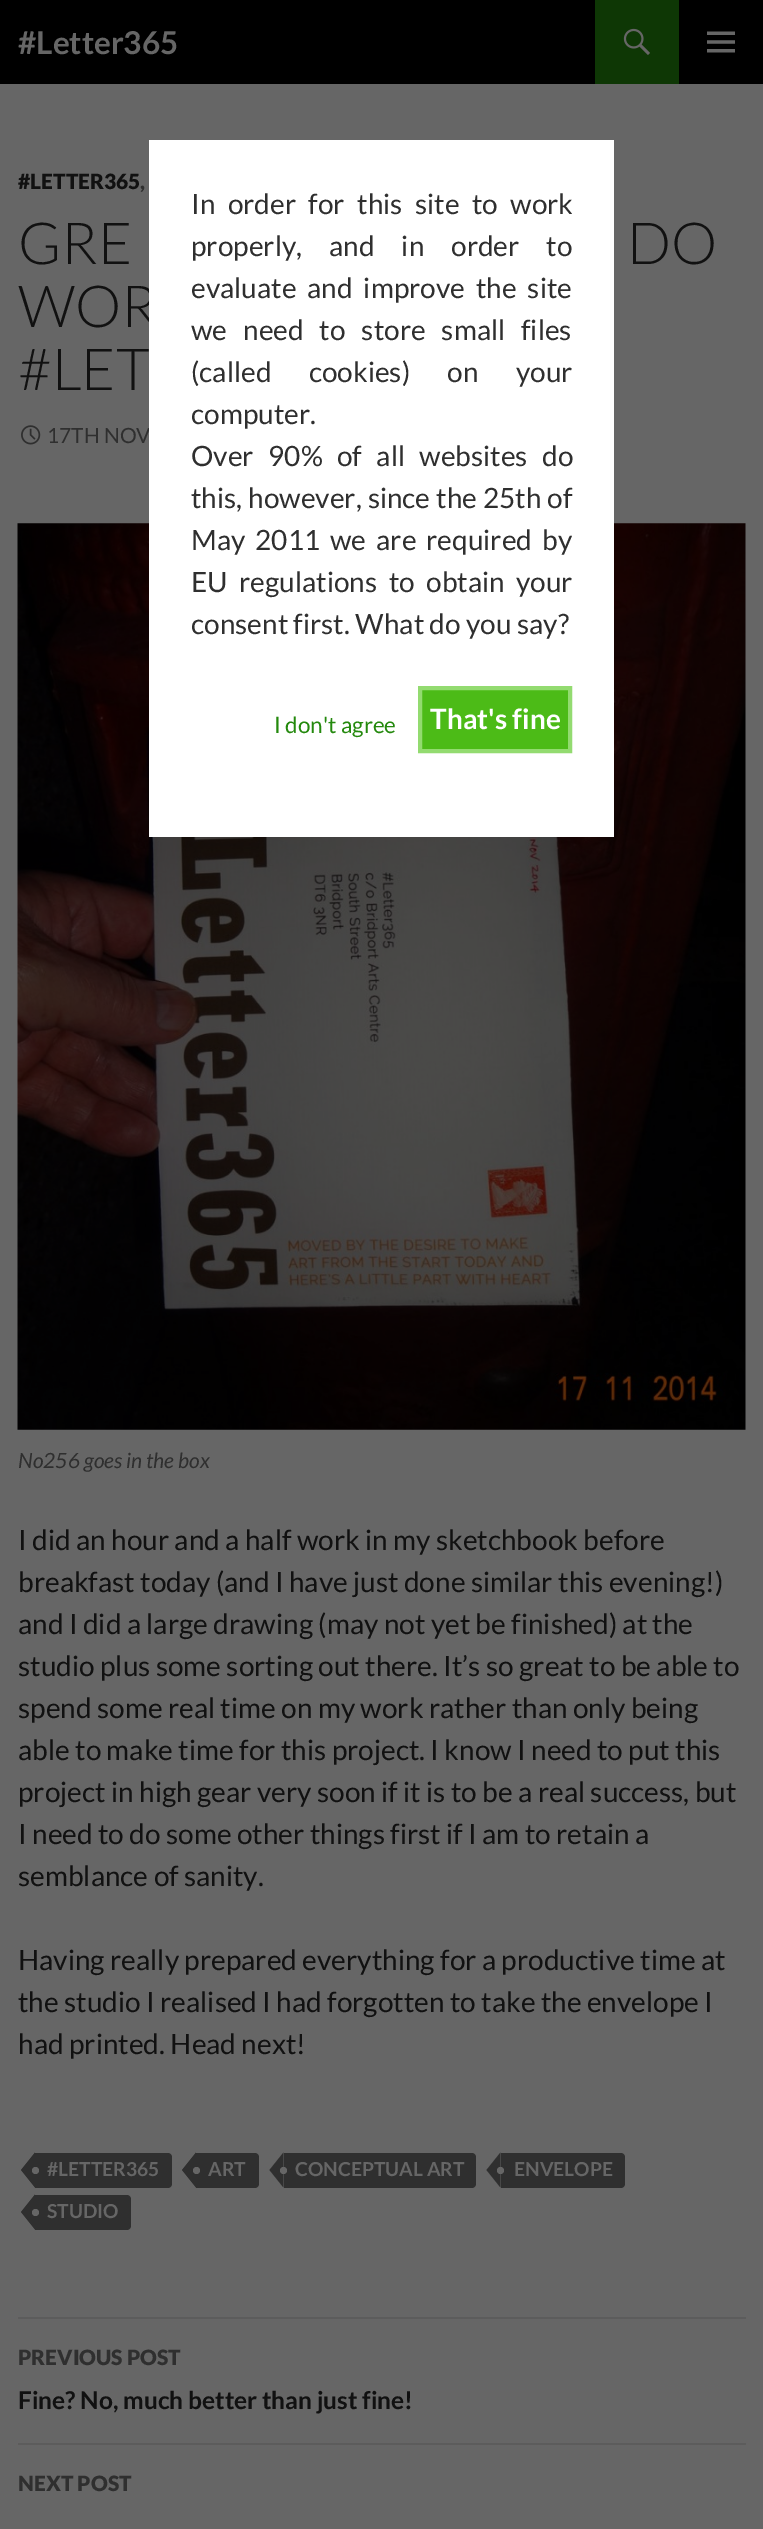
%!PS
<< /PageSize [763 2529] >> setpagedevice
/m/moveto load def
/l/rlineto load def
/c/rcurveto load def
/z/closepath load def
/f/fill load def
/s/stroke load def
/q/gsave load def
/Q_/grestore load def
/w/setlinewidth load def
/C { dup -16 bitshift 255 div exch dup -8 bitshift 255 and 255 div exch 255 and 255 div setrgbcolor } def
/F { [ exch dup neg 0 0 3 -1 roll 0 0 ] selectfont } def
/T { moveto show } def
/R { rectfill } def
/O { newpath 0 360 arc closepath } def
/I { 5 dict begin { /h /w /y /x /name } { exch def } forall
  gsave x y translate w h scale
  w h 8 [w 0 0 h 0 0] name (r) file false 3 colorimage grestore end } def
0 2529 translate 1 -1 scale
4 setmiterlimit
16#666666 C
0 0 763 2529 R
16#000000 C
0 0 763 84 R
/Lato-Bold 31.5 F
16#666666 C
(#Letter365) 18 54 T
16#0E3705 C
595 0 84 84 R
(1.rgb) 623 28 27 27 I
(2.rgb) 707 31 28 22 I
/Lato-Black 21 F
16#111111 C
(#LETTER365) 18 189 T
16#2F2F2F C
(,) 140 189 T
/Lato-Light 58 F
16#111111 C
(GRE) 18 264 T
(DO) 627 264 T
(WOR) 18 327 T
(#LET) 18 390 T
(3.rgb) 21 425 20 20 I
/Lato-Regular 21 F
16#2F2F2F C
(17TH NOV) 47 443 T
(4.rgb) 17 523 729 907 I
/Lato-Italic 21 F
(No256 goes in the box) 18 1468 T
/Lato-Regular 28 F
16#111111 C
(I did an hour and a half work in my sketchbook before) 18 1550 T
(breakfast today \(and I have just done similar this evening!\)) 18 1592 T
(and I did a large drawing \(may not yet be finished\) at the) 18 1634 T
(studio plus some sorting out there. It’s so great to be able to) 18 1676 T
(spend some real time on my work rather than only being) 18 1718 T
(able to make time for this project. I know I need to put this) 18 1760 T
(project in high gear very soon if it is to be a real success, but) 18 1802 T
(I need to do some other things first if I am to retain a) 18 1844 T
(semblance of sanity.) 18 1886 T
(Having really prepared everything for a productive time at) 18 1970 T
(the studio I realised I had forgotten to take the envelope I) 18 2012 T
(had printed. Head next!) 18 2054 T
16#2F2F2F C
35 2153 m 133 0 l 2 0 4 2 4 4 c 0 27 l 0 2 -2 4 -4 4 c -133 0 l z f
35 2152.5 m 0 35 l -14 -17.5 l z f
16#666666 C
35.5 2170.5 3.5 O f
/Lato-Bold 19.25 F
(#LETTER365) 47 2176 T
16#2F2F2F C
196 2153 m 59 0 l 2 0 4 2 4 4 c 0 27 l 0 2 -2 4 -4 4 c -59 0 l z f
196 2152.5 m 0 35 l -14 -17.5 l z f
16#666666 C
196.5 2170.5 3.5 O f
(ART) 208 2176 T
16#2F2F2F C
284 2153 m 188 0 l 2 0 4 2 4 4 c 0 27 l 0 2 -2 4 -4 4 c -188 0 l z f
283.5 2152.5 m 0 35 l -14 -17.5 l z f
16#666666 C
(CONCEPTUAL ART) 295 2176 T
283.5 2170.5 3.5 O f
16#2F2F2F C
501 2153 m 120 0 l 2 0 4 2 4 4 c 0 27 l 0 2 -2 4 -4 4 c -120 0 l z f
500.5 2152.5 m 0 35 l -14 -17.5 l z f
16#666666 C
(ENVELOPE) 514 2176 T
500.5 2170.5 3.5 O f
16#2F2F2F C
35 2195 m 92 0 l 2 0 4 2 4 4 c 0 27 l 0 2 -2 4 -4 4 c -92 0 l z f
35 2194.5 m 0 35 l -14 -17.5 l z f
16#666666 C
35.5 2212.5 3.5 O f
(STUDIO) 47 2218 T
16#5C5C5C C
18 2317 728 2 R
18 2443 728 2 R
/Lato-Black 21 F
16#2F2F2F C
(PREVIOUS POST) 18 2365 T
/Lato-Bold 24.5 F
16#111111 C
(Fine? No, much better than just fine!) 18 2409 T
/Lato-Black 21 F
16#2F2F2F C
(NEXT POST) 18 2491 T
16#FFFFFF C
149 140 465 697 R
/Lato-Regular 28 F
16#2F2F2F C
191 214 m 7 0 32 (In order for this site to work) widthshow
191 256 m 21.5 0 32 (properly, and in order to) widthshow
191 298 m 5.5 0 32 (evaluate and improve the site) widthshow
191 340 m 10.5 0 32 (we need to store small files) widthshow
191 382 m 32 0 32 (\(called cookies\) on your) widthshow
(computer.) 191 424 T
191 466 m 9 0 32 (Over 90% of all websites do) widthshow
191 508 m .5 0 32 (this, however, since the 25th of) widthshow
191 550 m 4.5 0 32 (May 2011 we are required by) widthshow
191 592 m 6 0 32 (EU regulations to obtain your) widthshow
(consent first. What do you say?) 191 634 T
/Lato-Regular 22.5 F
16#24890D C
(I don't agree) 274 733 T
16#4CBB17 C
420 688 m 150 0 l 0 63 l -150 0 l z q f Q_
16#93DB70 C
4 w
s
/Lato-Bold 28 F
16#FFFFFF C
(That's fine) 430 729 T
showpage
